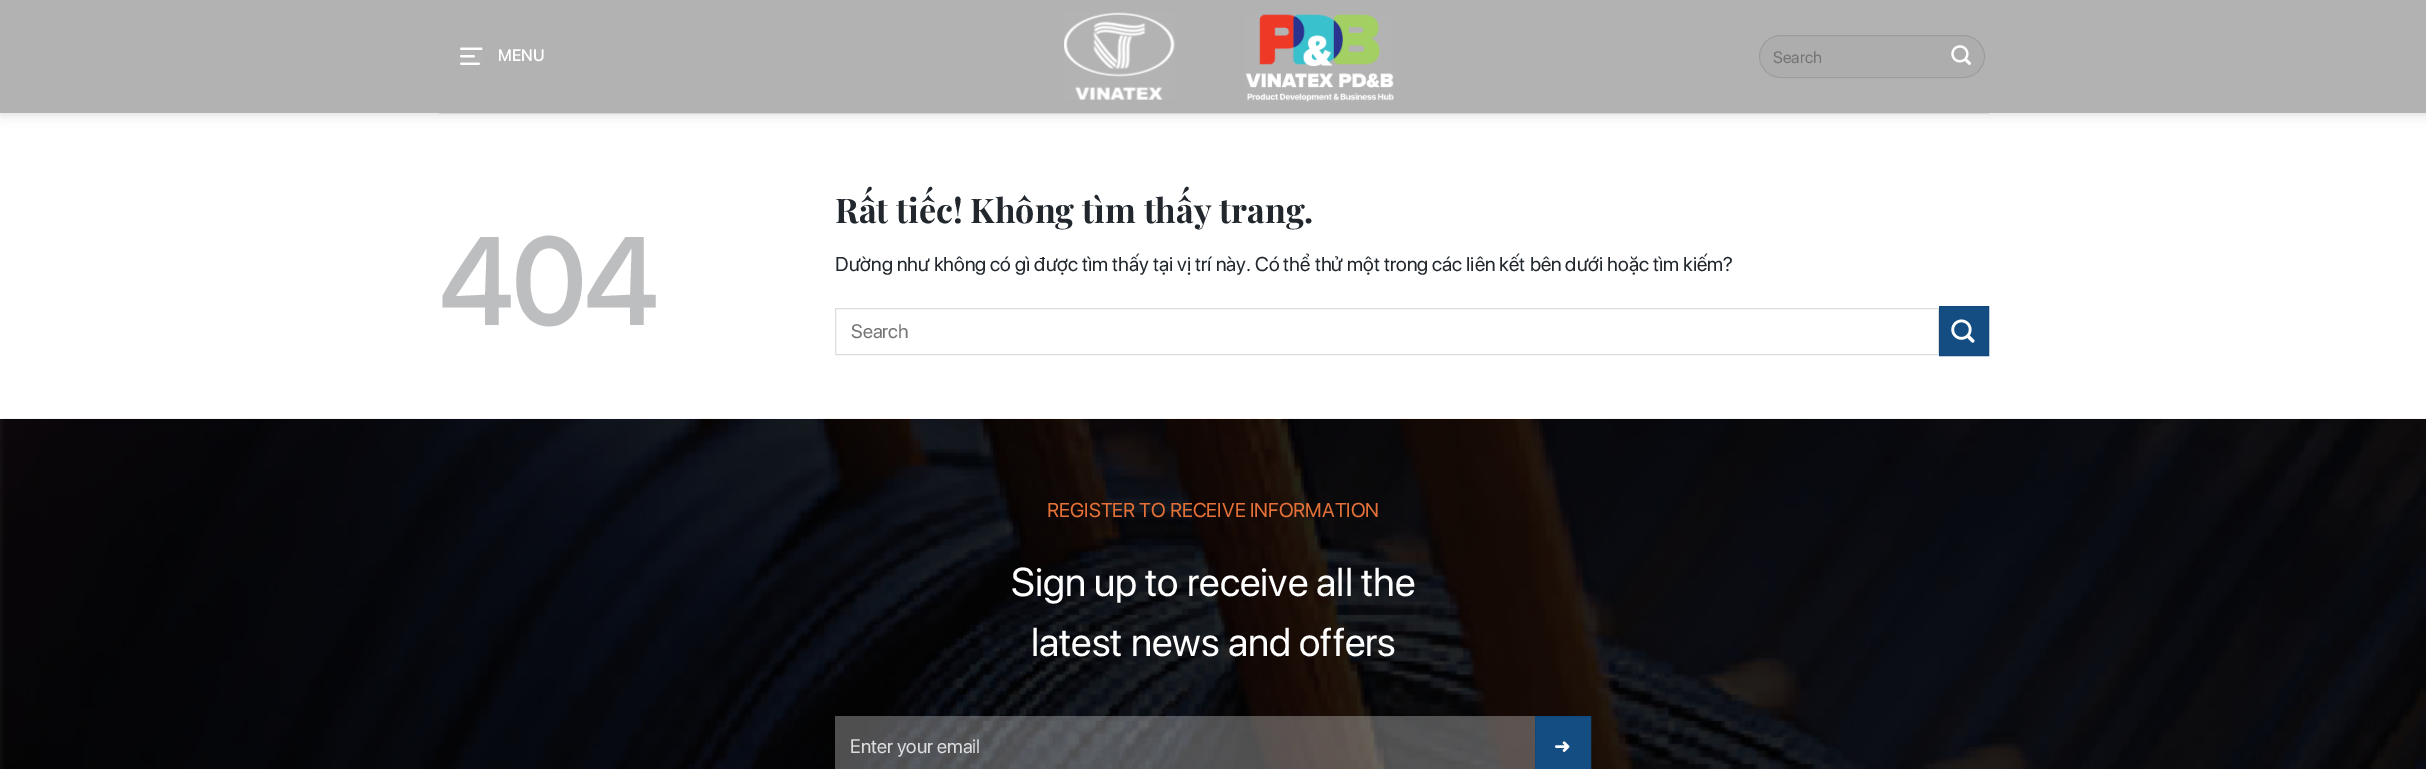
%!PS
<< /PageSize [2426 769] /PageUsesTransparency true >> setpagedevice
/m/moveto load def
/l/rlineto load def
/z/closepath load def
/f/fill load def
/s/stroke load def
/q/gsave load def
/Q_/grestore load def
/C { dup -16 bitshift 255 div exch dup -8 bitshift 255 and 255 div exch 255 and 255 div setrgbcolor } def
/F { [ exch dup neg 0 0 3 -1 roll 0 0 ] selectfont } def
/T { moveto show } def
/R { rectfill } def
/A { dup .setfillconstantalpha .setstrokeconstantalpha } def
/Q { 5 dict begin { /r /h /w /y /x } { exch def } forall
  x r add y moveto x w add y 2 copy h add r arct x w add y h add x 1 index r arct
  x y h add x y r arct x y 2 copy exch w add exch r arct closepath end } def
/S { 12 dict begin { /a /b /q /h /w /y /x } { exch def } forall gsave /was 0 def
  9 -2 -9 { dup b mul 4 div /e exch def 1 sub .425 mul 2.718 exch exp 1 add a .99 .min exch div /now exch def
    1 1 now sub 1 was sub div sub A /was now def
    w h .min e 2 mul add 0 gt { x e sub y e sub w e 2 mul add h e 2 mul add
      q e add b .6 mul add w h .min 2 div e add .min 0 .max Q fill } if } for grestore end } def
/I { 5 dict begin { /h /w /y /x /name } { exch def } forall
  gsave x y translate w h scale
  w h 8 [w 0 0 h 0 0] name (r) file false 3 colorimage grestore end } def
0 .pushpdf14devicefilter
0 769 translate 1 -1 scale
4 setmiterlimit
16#FFFFFF C
0 0 2426 769 R
q
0 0 m 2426 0 l 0 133 l -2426 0 l z 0 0 m 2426 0 l 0 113 l -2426 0 l z eoclip newpath
16#000000 C
1 1 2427 113 0 6 .15 S
Q_
0.3 A
16#000000 C
0 0 2426 113 R
1 A
(1.rgb) 460 47 23 18 I
/SFProDisplay-Bold 16 F
16#FFFFFF C
498 61 m .5 0 (MENU) ashow
(2.rgb) 1064 12 111 88 I
(3.rgb) 1245 14 149 88 I
16#ADADAD C
1759 35 226 43 21.5 Q f
0.09 A
16#000000 C
1759.5 35.5 225 42 21 Q s
/SFProDisplay-Regular 16.5 F
1 A
16#757575 C
(Search) 1773 63 T
(4.rgb) 1951 45 20 20 I
16#D6D7D8 C
439 113 1550 1 R
/SFProDisplay-Bold 120 F
16#BCBEC0 C
(404) 438 325 T
/PlayfairDisplay-Bold 34 F
16#21272D C
(Rất tiếc! Không tìm thấy trang.) 835 223 T
/SFProDisplay-Regular 20 F
(Dường như không có gì được tìm thấy tại vị trí này. Có thể thử một trong các liên kết bên dưới hoặc tìm kiếm?) 835 271 T
16#DDDDDD C
835.5 308.5 1103 46 rectstroke
/SFProDisplay-Regular 19.5 F
16#757575 C
(Search) 851 338 T
16#134D82 C
1939.5 306.5 m 49 0 l 0 49 l -49 0 l z q f Q_
16#12497C C
s
(5.rgb) 1951 319 24 24 I
(6.rgb) 0 418 2426 351 I
/SFProDisplay-Regular 20 F
16#E57138 C
(REGISTER TO RECEIVE INFORMATION) 1047 517 T
/SFProDisplay-Regular 40 F
16#FFFFFF C
(Sign up to receive all the) 1011 596 T
(latest news and offers) 1031 656 T
0.3 A
835 716 700 53 R
/SFProDisplay-Regular 19.5 F
1 A
16#DCDDDD C
(Enter your email) 850 753 T
16#134D82 C
1535.5 716.5 m 55 0 l 0 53 l -55 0 l z q f Q_
16#12497C C
s
/DejaVuSans-Bold 19.5 F
16#FFFFFF C
1554 753 m 1 0 (➜) ashow
.poppdf14devicefilter showpage
